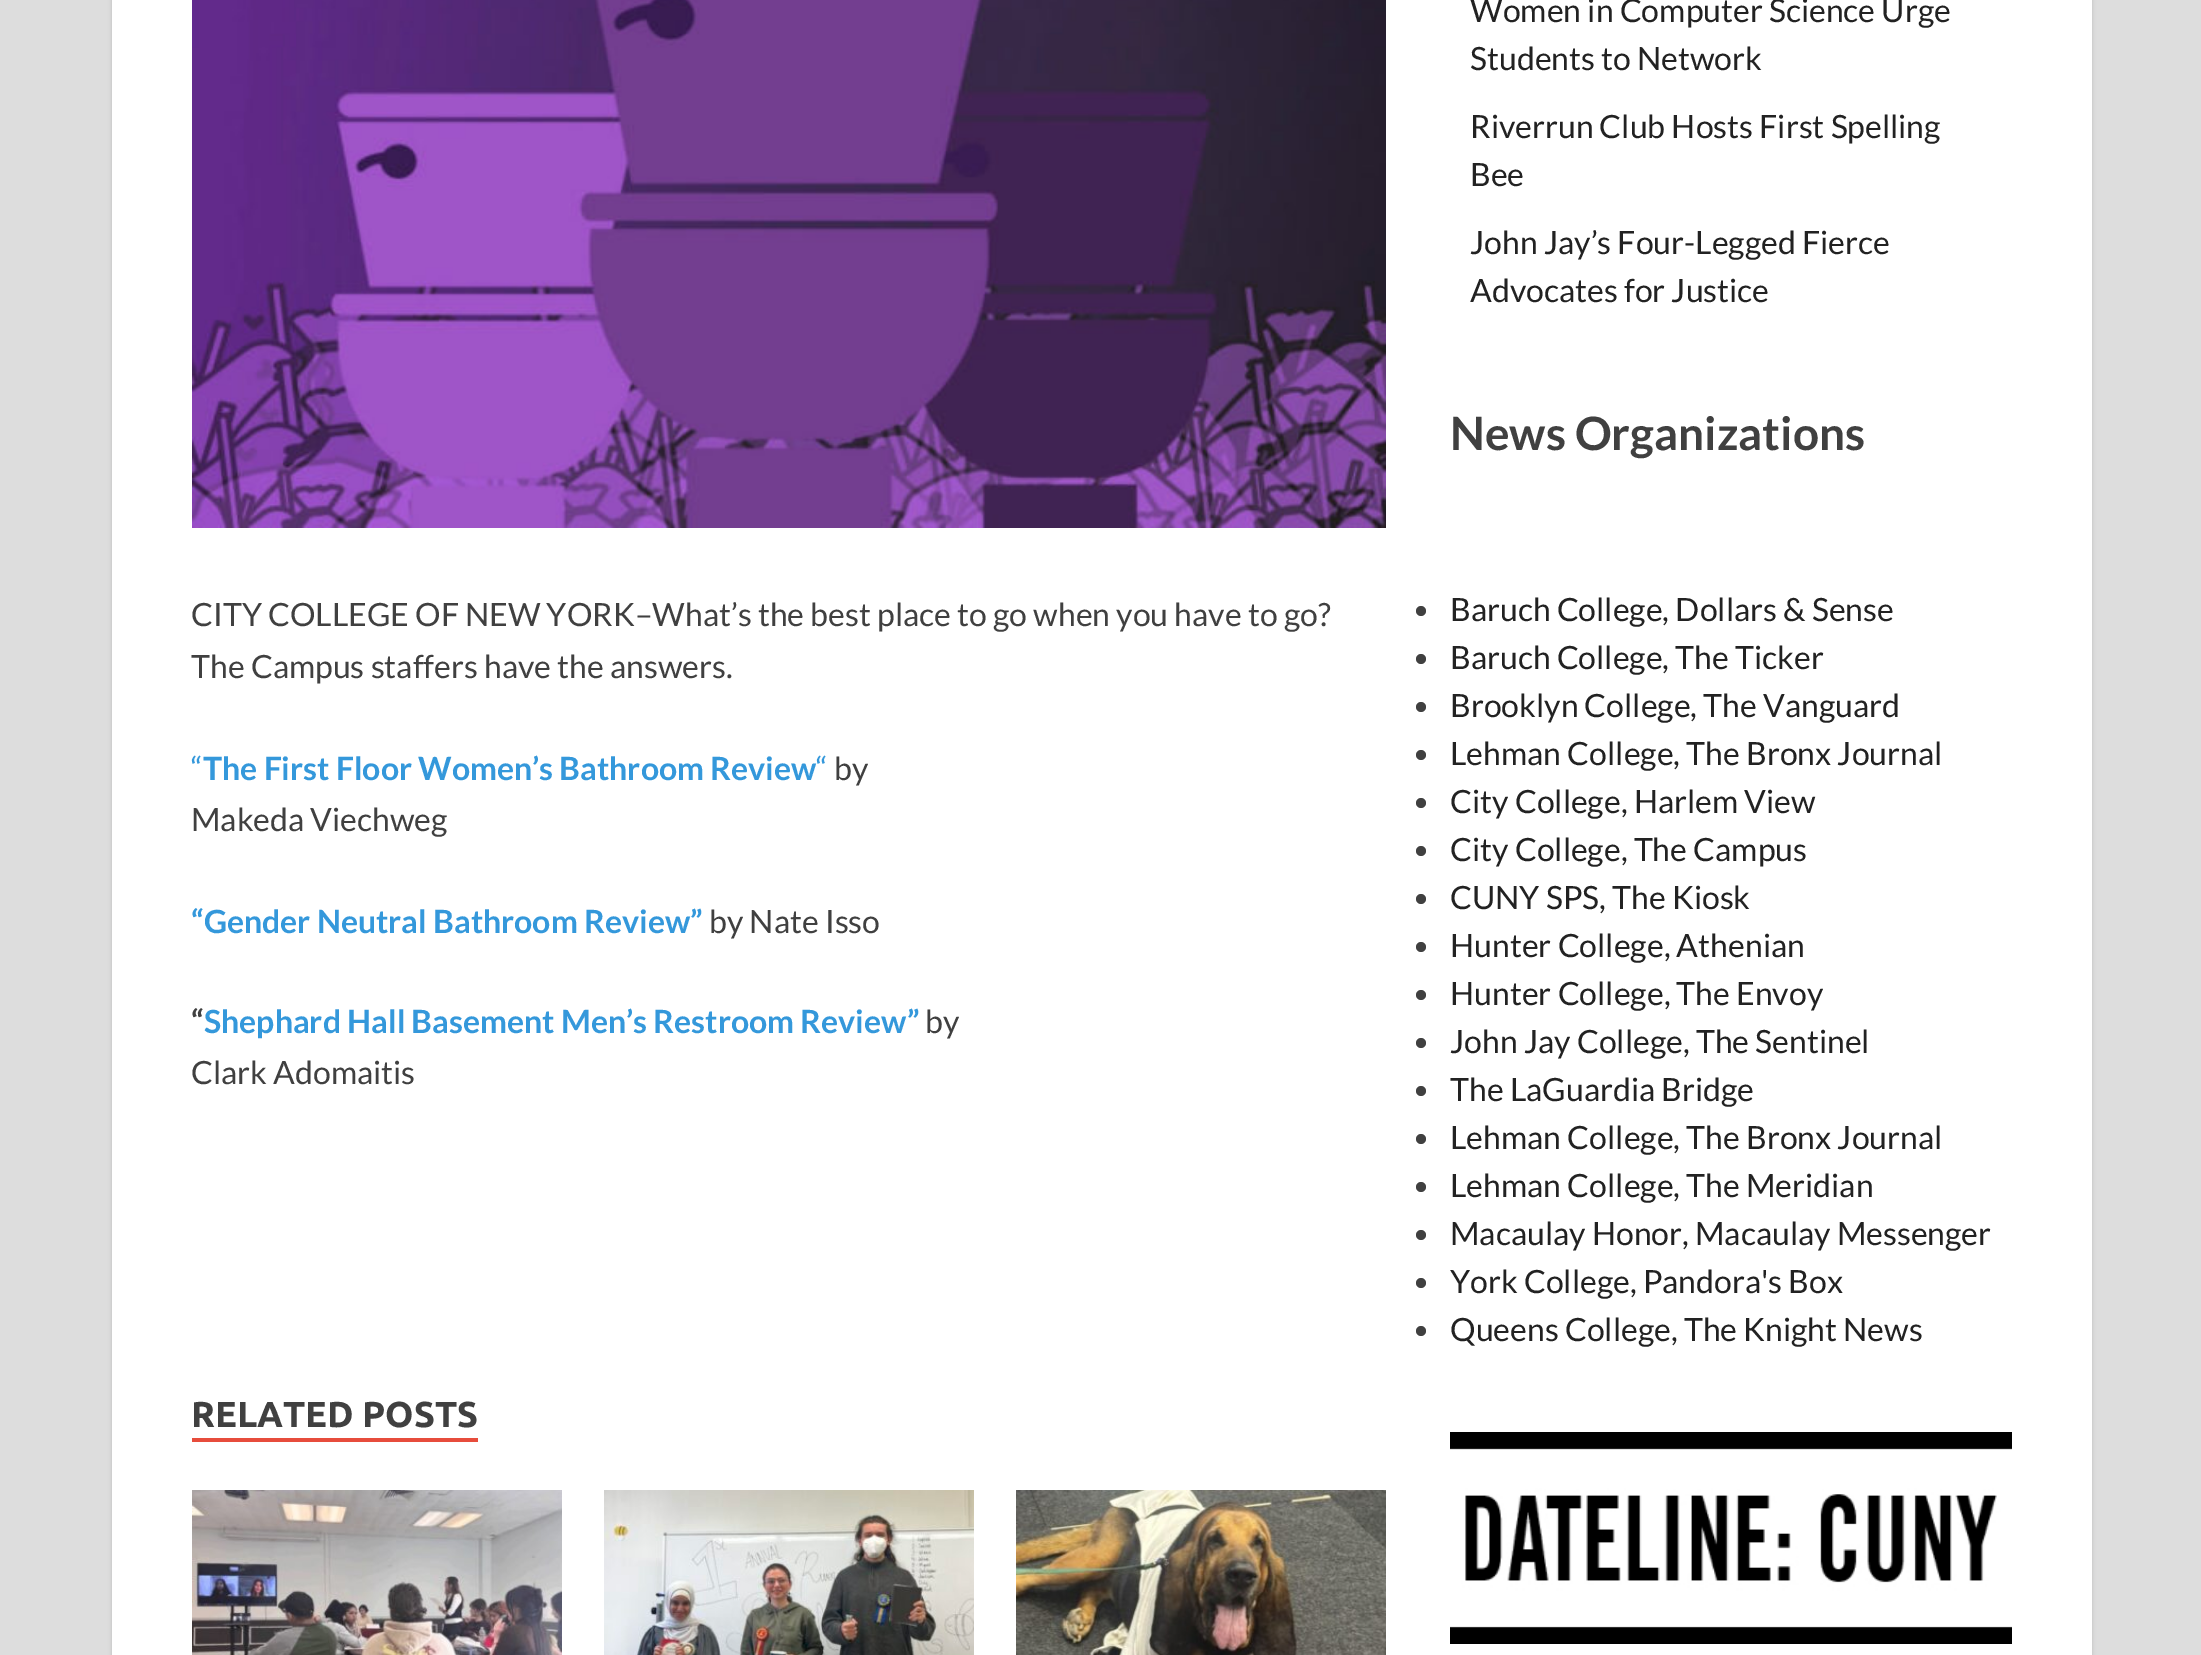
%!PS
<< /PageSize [2201 1655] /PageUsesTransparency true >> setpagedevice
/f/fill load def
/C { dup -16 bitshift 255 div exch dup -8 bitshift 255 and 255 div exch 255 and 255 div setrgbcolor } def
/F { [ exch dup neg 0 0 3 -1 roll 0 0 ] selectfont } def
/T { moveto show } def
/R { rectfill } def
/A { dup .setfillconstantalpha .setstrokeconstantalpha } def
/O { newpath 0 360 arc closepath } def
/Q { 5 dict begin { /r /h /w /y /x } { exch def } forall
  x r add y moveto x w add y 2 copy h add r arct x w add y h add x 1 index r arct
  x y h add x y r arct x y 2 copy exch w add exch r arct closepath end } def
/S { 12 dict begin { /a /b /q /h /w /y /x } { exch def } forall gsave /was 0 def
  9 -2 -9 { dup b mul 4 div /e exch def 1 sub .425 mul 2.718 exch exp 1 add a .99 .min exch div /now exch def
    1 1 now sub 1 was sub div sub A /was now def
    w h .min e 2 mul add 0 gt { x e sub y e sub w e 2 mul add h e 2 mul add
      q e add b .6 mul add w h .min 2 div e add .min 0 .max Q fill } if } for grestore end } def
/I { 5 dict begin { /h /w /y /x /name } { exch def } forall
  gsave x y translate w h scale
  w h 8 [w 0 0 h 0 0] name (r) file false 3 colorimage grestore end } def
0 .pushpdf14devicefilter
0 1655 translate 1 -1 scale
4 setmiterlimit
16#DDDDDD C
0 0 2201 1655 R
16#BBBBBB C
112 -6 1980 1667 0 2 1 S
16#FFFFFF C
112 0 1980 1655 R
(1.rgb) 192 0 1194 528 I
/Lato-Regular 32 F
16#404040 C
(CITY COLLEGE OF NEW YORK–What’s the best place to go when you have to go?) 191 626 T
(The Campus staffers have the answers.) 191 678 T
16#3498DB C
(“) 191 780 T
/Lato-Bold 32 F
(The First Floor Women’s Bathroom Review) 203 780 T
/Lato-Regular 32 F
(“) 816 780 T
16#404040 C
(by) 834 780 T
(Makeda Viechweg) 191 831 T
/Lato-Bold 32 F
16#3498DB C
(“Gender Neutral Bathroom Review”) 191 933 T
/Lato-Regular 32 F
16#404040 C
(by Nate Isso) 709 933 T
/Lato-Bold 32 F
(“) 191 1033 T
16#3498DB C
(Shephard Hall Basement Men’s Restroom Review”) 204 1033 T
/Lato-Regular 32 F
16#404040 C
(by) 925 1033 T
(Clark Adomaitis) 191 1084 T
16#E74C3C C
192 1438 286 4 R
/Ubuntu-Bold 36 F
16#404040 C
(RELATED POSTS) 191 1427 T
(2.rgb) 192 1490 370 165 I
(3.rgb) 604 1490 370 165 I
(4.rgb) 1016 1490 370 165 I
/Lato-Regular 32 F
16#222222 C
(Women in Computer Science Urge) 1470 22 T
(Students to Network) 1470 70 T
(Riverrun Club Hosts First Spelling) 1470 138 T
(Bee) 1470 186 T
(John Jay’s Four-Legged Fierce) 1470 254 T
(Advocates for Justice) 1470 302 T
/Lato-Bold 46 F
16#404040 C
(News Organizations) 1450 450 T
1421 611 5 O f
/Lato-Regular 32 F
16#222222 C
(Baruch College, Dollars & Sense) 1450 621 T
16#404040 C
1421 659 5 O f
16#222222 C
(Baruch College, The Ticker) 1450 669 T
16#404040 C
1421 707 5 O f
16#222222 C
(Brooklyn College, The Vanguard) 1450 717 T
16#404040 C
1421 755 5 O f
16#222222 C
(Lehman College, The Bronx Journal) 1450 765 T
16#404040 C
1421 803 5 O f
16#222222 C
(City College, Harlem View) 1450 813 T
16#404040 C
1421 851 5 O f
16#222222 C
(City College, The Campus) 1450 861 T
16#404040 C
1421 899 5 O f
16#222222 C
(CUNY SPS, The Kiosk) 1450 909 T
16#404040 C
1421 947 5 O f
16#222222 C
(Hunter College, Athenian) 1450 957 T
16#404040 C
1421 995 5 O f
16#222222 C
(Hunter College, The Envoy) 1450 1005 T
16#404040 C
1421 1043 5 O f
16#222222 C
(John Jay College, The Sentinel) 1450 1053 T
16#404040 C
1421 1091 5 O f
16#222222 C
(The LaGuardia Bridge) 1450 1101 T
16#404040 C
1421 1139 5 O f
16#222222 C
(Lehman College, The Bronx Journal) 1450 1149 T
16#404040 C
1421 1187 5 O f
16#222222 C
(Lehman College, The Meridian) 1450 1197 T
16#404040 C
1421 1235 5 O f
16#222222 C
(Macaulay Honor, Macaulay Messenger) 1450 1245 T
16#404040 C
1421 1283 5 O f
16#222222 C
(York College, Pandora's Box) 1450 1293 T
16#404040 C
1421 1331 5 O f
16#222222 C
(Queens College, The Knight News) 1450 1341 T
(5.rgb) 1450 1432 562 212 I
.poppdf14devicefilter showpage
